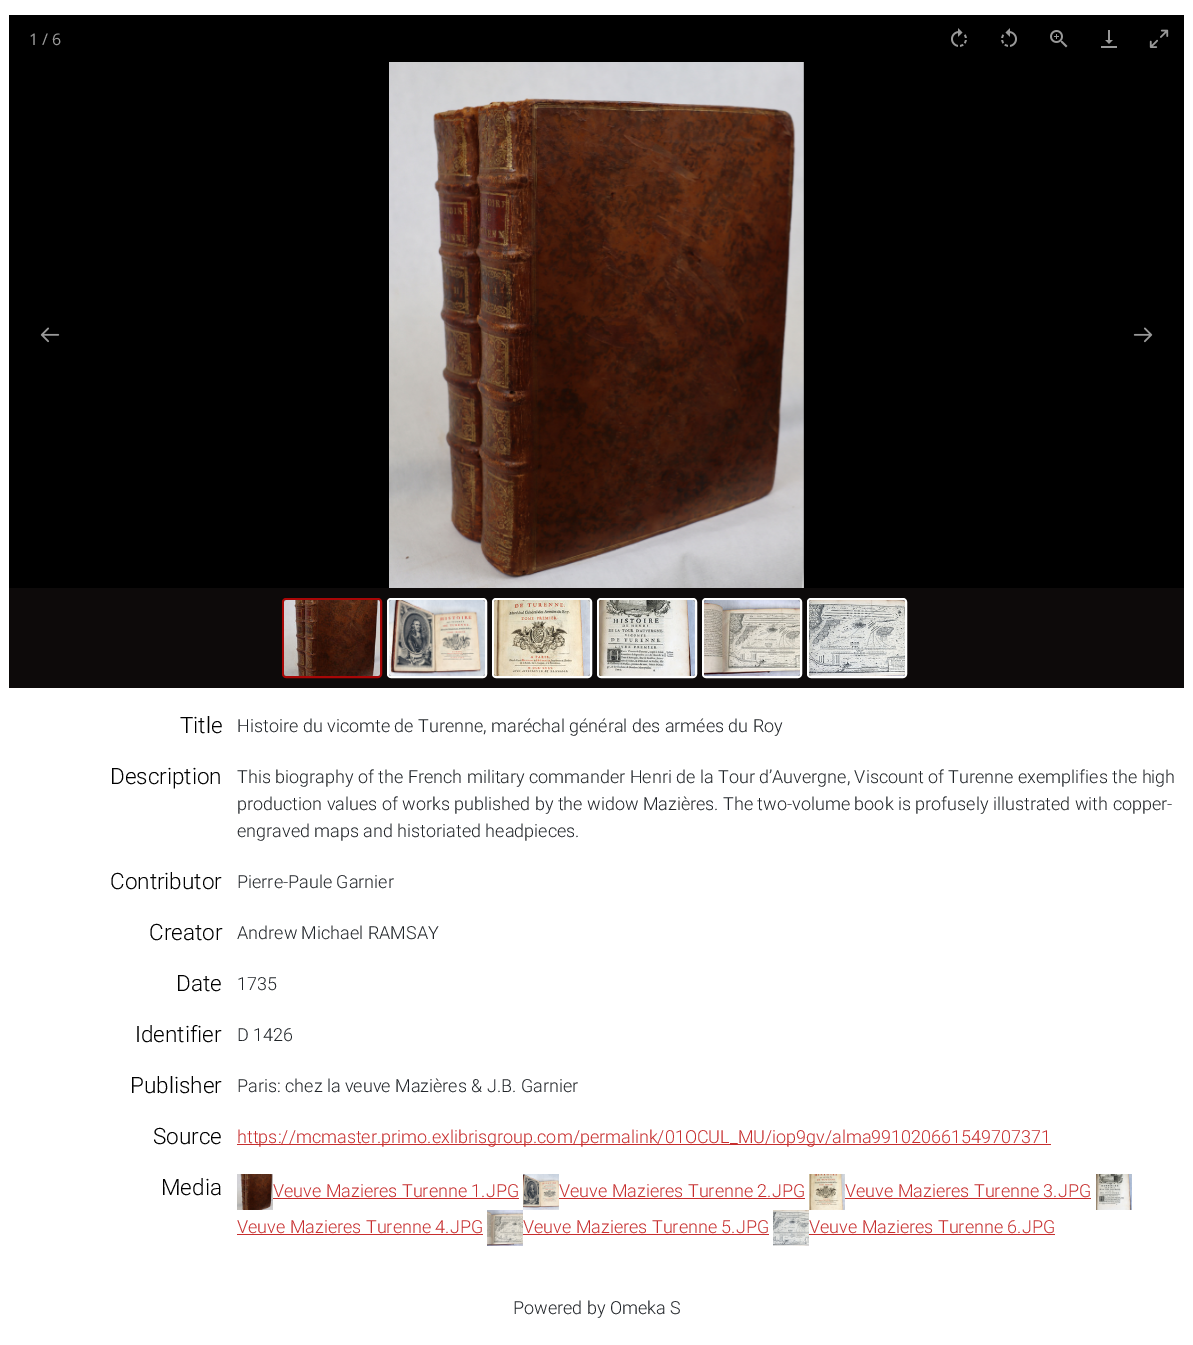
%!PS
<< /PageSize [1193 1345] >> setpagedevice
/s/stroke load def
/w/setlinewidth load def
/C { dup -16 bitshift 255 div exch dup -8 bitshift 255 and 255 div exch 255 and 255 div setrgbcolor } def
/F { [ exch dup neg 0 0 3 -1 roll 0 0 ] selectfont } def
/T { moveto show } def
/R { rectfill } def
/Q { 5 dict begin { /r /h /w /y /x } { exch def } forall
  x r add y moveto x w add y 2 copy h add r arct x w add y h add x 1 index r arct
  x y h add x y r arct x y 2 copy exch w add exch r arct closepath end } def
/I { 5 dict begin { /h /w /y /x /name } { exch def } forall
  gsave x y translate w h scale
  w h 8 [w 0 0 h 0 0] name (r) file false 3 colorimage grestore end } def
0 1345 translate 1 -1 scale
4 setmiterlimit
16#FFFFFF C
0 0 1193 1345 R
16#000000 C
9 15 1175 573 R
/NotoSans-Regular 16 F
16#999999 C
(1 / 6) 29 45 T
(1.rgb) 951 28 16 19 I
(2.rgb) 1001 28 16 19 I
(3.rgb) 1050 30 18 18 I
(4.rgb) 1101 30 16 18 I
(5.rgb) 1149 29 20 19 I
(6.rgb) 40 327 20 16 I
(7.rgb) 389 62 415 526 I
(8.rgb) 1133 327 20 16 I
16#0D0A0A C
9 588 1175 100 R
16#A90707 C
2 w
283 599 98 78 3 Q s
(9.rgb) 284 600 96 76 I
16#FFFFFF C
388 599 98 78 3 Q s
(10.rgb) 389 600 96 76 I
493 599 98 78 3 Q s
(11.rgb) 494 600 96 76 I
598 599 98 78 3 Q s
(12.rgb) 599 600 96 76 I
703 599 98 78 3 Q s
(13.rgb) 704 600 96 76 I
808 599 98 78 3 Q s
(14.rgb) 809 600 96 76 I
/Roboto-Light 22.5 F
16#000000 C
(Title) 180 733 T
/Roboto-Light 18 F
16#212529 C
(Histoire du vicomte de Turenne, maréchal général des armées du Roy) 237 732 T
/Roboto-Light 22.5 F
16#000000 C
(Description) 110 784 T
/Roboto-Light 18 F
16#212529 C
(This biography of the French military commander Henri de la Tour d’Auvergne, Viscount of Turenne exemplifies the high) 237 783 T
(production values of works published by the widow Mazières. The two-volume book is profusely illustrated with copper-) 237 810 T
(engraved maps and historiated headpieces.) 237 837 T
/Roboto-Light 22.5 F
16#000000 C
(Contributor) 110 889 T
/Roboto-Light 18 F
16#212529 C
(Pierre-Paule Garnier) 237 888 T
/Roboto-Light 22.5 F
16#000000 C
(Creator) 149 940 T
/Roboto-Light 18 F
16#212529 C
(Andrew Michael RAMSAY) 237 939 T
/Roboto-Light 22.5 F
16#000000 C
(Date) 176 991 T
/Roboto-Light 18 F
16#212529 C
(1735) 237 990 T
/Roboto-Light 22.5 F
16#000000 C
(Identifier) 135 1042 T
/Roboto-Light 18 F
16#212529 C
(D 1426) 237 1041 T
/Roboto-Light 22.5 F
16#000000 C
(Publisher) 130 1093 T
/Roboto-Light 18 F
16#212529 C
(Paris: chez la veuve Mazières & J.B. Garnier) 237 1092 T
/Roboto-Light 22.5 F
16#000000 C
(Source) 153 1144 T
16#C72E2E C
237 1144 814 1 R
/Roboto-Light 18 F
(https://mcmaster.primo.exlibrisgroup.com/permalink/01OCUL_MU/iop9gv/alma991020661549707371) 237 1143 T
/Roboto-Light 22.5 F
16#000000 C
(Media) 161 1195 T
(15.rgb) 237 1174 36 36 I
/Roboto-Light 18 F
16#C72E2E C
(Veuve Mazieres Turenne 1.JPG) 273 1197 T
273 1198 246 1 R
(16.rgb) 523 1174 36 36 I
(Veuve Mazieres Turenne 2.JPG) 559 1197 T
559 1198 246 1 R
(17.rgb) 809 1174 36 36 I
(Veuve Mazieres Turenne 3.JPG) 845 1197 T
845 1198 246 1 R
(18.rgb) 1096 1174 36 36 I
(Veuve Mazieres Turenne 4.JPG) 237 1233 T
237 1234 246 1 R
(19.rgb) 487 1210 36 36 I
(Veuve Mazieres Turenne 5.JPG) 523 1233 T
523 1234 246 1 R
(20.rgb) 773 1210 36 36 I
(Veuve Mazieres Turenne 6.JPG) 809 1233 T
809 1234 246 1 R
16#212529 C
(Powered by Omeka S) 513 1314 T
showpage
